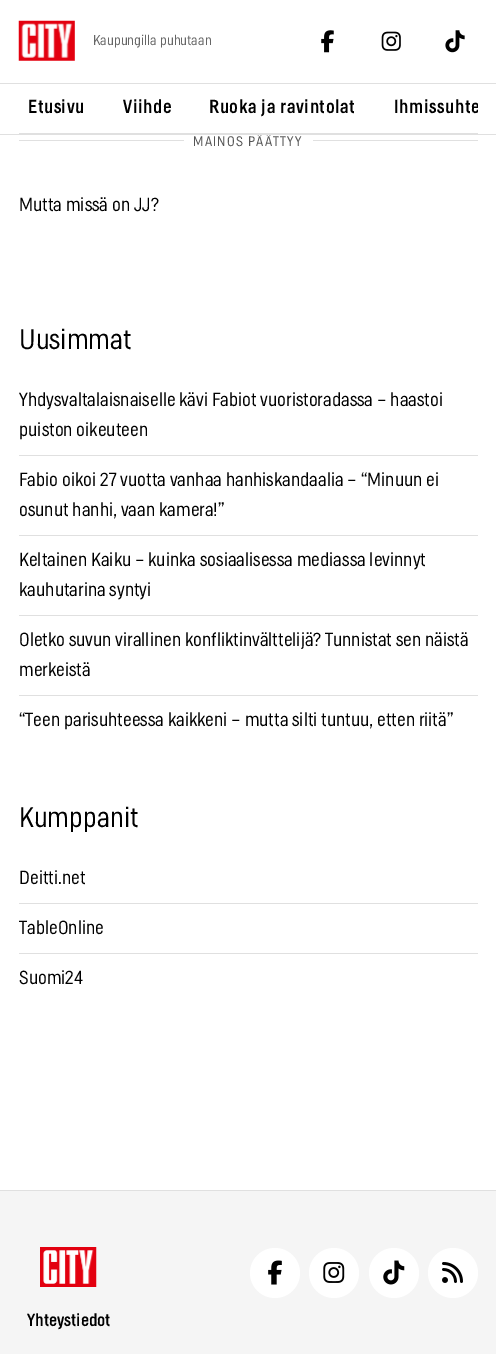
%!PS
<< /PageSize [496 1354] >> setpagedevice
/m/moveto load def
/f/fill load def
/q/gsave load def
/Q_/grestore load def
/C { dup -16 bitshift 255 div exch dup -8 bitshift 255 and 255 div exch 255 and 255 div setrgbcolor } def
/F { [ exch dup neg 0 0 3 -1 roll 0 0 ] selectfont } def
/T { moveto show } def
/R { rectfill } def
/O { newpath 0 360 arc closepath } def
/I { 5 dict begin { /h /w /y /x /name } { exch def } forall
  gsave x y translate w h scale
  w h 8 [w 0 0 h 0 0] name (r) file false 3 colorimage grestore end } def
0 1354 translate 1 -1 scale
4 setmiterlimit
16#FFFFFF C
0 0 496 1354 R
16#E0E0E0 C
19 140 459 1 R
16#FFFFFF C
184 140 129 1 R
/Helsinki-ExtraLight 13.75 F
16#555555 C
193 146 m 1.25 0 (MAINOS PÄÄTTYY) ashow
16#E0E0E0 C
0 134 496 1 R
0 83 496 1 R
(1.rgb) 18 20 57 41 I
/Helsinki-ExtraLight 14 F
16#666666 C
(Kaupungilla puhutaan) 93 45 T
(2.rgb) 321 30 13 23 I
(3.rgb) 381 31 20 20 I
(4.rgb) 445 30 20 23 I
16#E0E0E0 C
19 133 459 1 R
/Helsinki-Regular 18.75 F
16#000000 C
28 113 m .6 0 (Etusivu) ashow
123 113 m .6 0 (Viihde) ashow
209 113 m .6 0 (Ruoka ja ravintolat) ashow
q
19 84 459 49 rectclip
394 113 m .6 0 (Ihmissuhte) ashow
Q_
/Helsinki-ExtraLight 18.75 F
(Mutta missä on JJ?) 19 211 T
/Helsinki-ExtraLight 28 F
(Uusimmat) 19 349 T
16#E0E0E0 C
19 455 459 1 R
/Helsinki-ExtraLight 18.75 F
16#000000 C
(Yhdysvaltalaisnaiselle kävi Fabiot vuoristoradassa – haastoi) 19 406 T
(puiston oikeuteen) 19 436 T
16#E0E0E0 C
19 535 459 1 R
16#000000 C
(Fabio oikoi 27 vuotta vanhaa hanhiskandaalia – “Minuun ei) 19 486 T
(osunut hanhi, vaan kamera!”) 19 516 T
16#E0E0E0 C
19 615 459 1 R
16#000000 C
(Keltainen Kaiku – kuinka sosiaalisessa mediassa levinnyt) 19 566 T
(kauhutarina syntyi) 19 596 T
16#E0E0E0 C
19 695 459 1 R
16#000000 C
(Oletko suvun virallinen konfliktinvälttelijä? Tunnistat sen näistä) 19 646 T
(merkeistä) 19 676 T
(“Teen parisuhteessa kaikkeni – mutta silti tuntuu, etten riitä”) 19 726 T
/Helsinki-ExtraLight 28 F
(Kumppanit) 19 827 T
16#E0E0E0 C
19 903 459 1 R
/Helsinki-ExtraLight 18.75 F
16#000000 C
(Deitti.net) 19 884 T
16#E0E0E0 C
19 953 459 1 R
16#000000 C
(TableOnline) 19 934 T
(Suomi24) 19 984 T
16#F5F5F5 C
0 1191 496 163 R
16#E0E0E0 C
0 1190 496 1 R
16#FFFFFF C
275 1273 25 O f
(5.rgb) 268 1260 14 25 I
334 1273 25 O f
(6.rgb) 323 1262 22 21 I
394 1273 25 O f
(7.rgb) 383 1260 22 25 I
453 1273 25 O f
(8.rgb) 442 1262 21 21 I
(9.rgb) 40 1247 57 40 I
/Helsinki-Regular 17.5 F
16#000000 C
(Yhteystiedot) 27 1326 T
showpage
